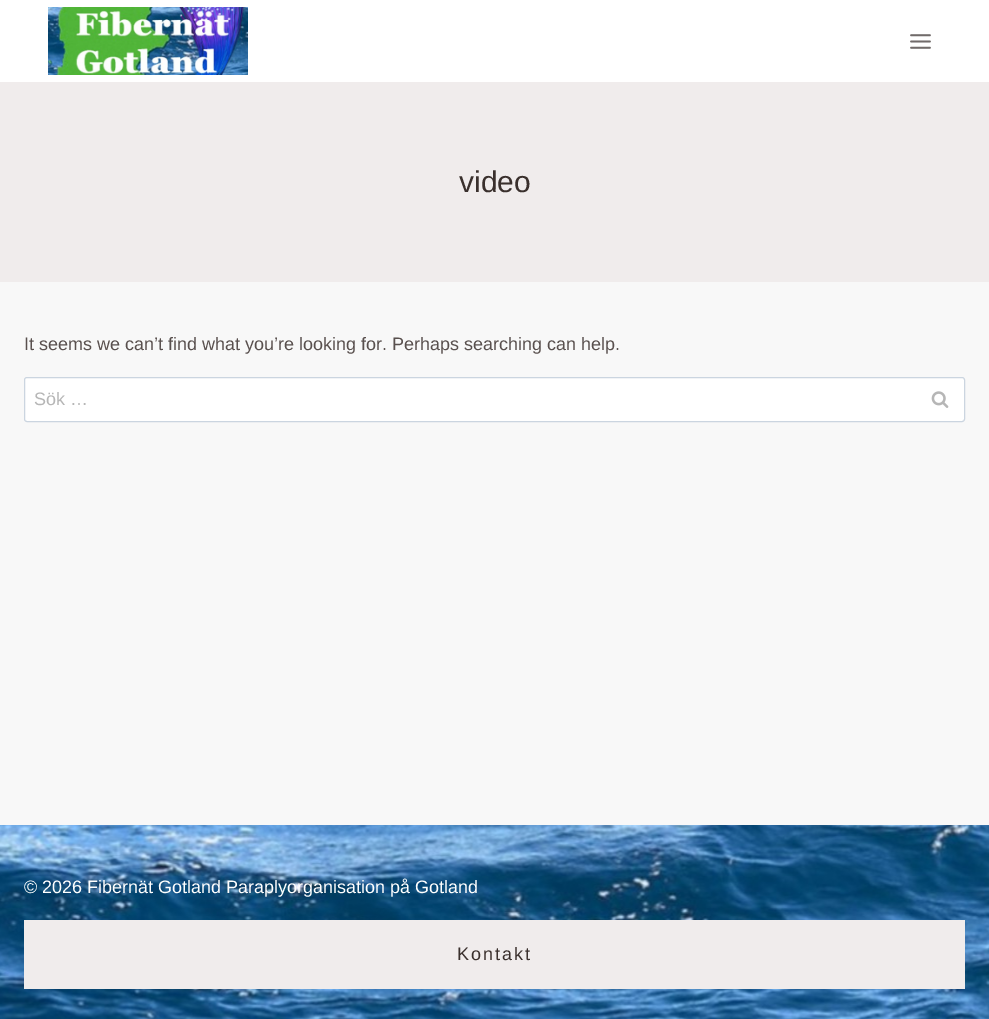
%!PS
<< /PageSize [989 1019] >> setpagedevice
/m/moveto load def
/f/fill load def
/s/stroke load def
/q/gsave load def
/Q_/grestore load def
/C { dup -16 bitshift 255 div exch dup -8 bitshift 255 and 255 div exch 255 and 255 div setrgbcolor } def
/F { [ exch dup neg 0 0 3 -1 roll 0 0 ] selectfont } def
/T { moveto show } def
/R { rectfill } def
/Q { 5 dict begin { /r /h /w /y /x } { exch def } forall
  x r add y moveto x w add y 2 copy h add r arct x w add y h add x 1 index r arct
  x y h add x y r arct x y 2 copy exch w add exch r arct closepath end } def
/I { 5 dict begin { /h /w /y /x /name } { exch def } forall
  gsave x y translate w h scale
  w h 8 [w 0 0 h 0 0] name (r) file false 3 colorimage grestore end } def
0 1019 translate 1 -1 scale
4 setmiterlimit
16#F8F8F8 C
0 0 989 1019 R
16#FFFFFF C
0 0 989 82 R
(1.rgb) 48 7 200 68 I
(2.rgb) 910 34 21 15 I
16#F0ECEC C
0 82 989 200 R
/LiberationSans-Regular 30 F
16#3A302D C
(video) 459 192 T
/LiberationSans-Regular 18 F
16#59504E C
(It seems we can’t find what you’re looking for. Perhaps searching can help.) 24 350 T
16#FFFFFF C
24.5 377.5 940 44 2.5 Q q f Q_
16#CBD5E0 C
s
16#B6B6B6 C
(Sök …) 34 405 T
(3.rgb) 931 391 18 17 I
(4.rgb) 0 825 989 194 I
16#FFFFFF C
(© 2026 Fibernät Gotland Paraplyorganisation på Gotland) 24 893 T
16#F0ECEC C
24 920 941 69 R
16#3A302D C
457 960 m 2 0 (Kontakt) ashow
showpage
